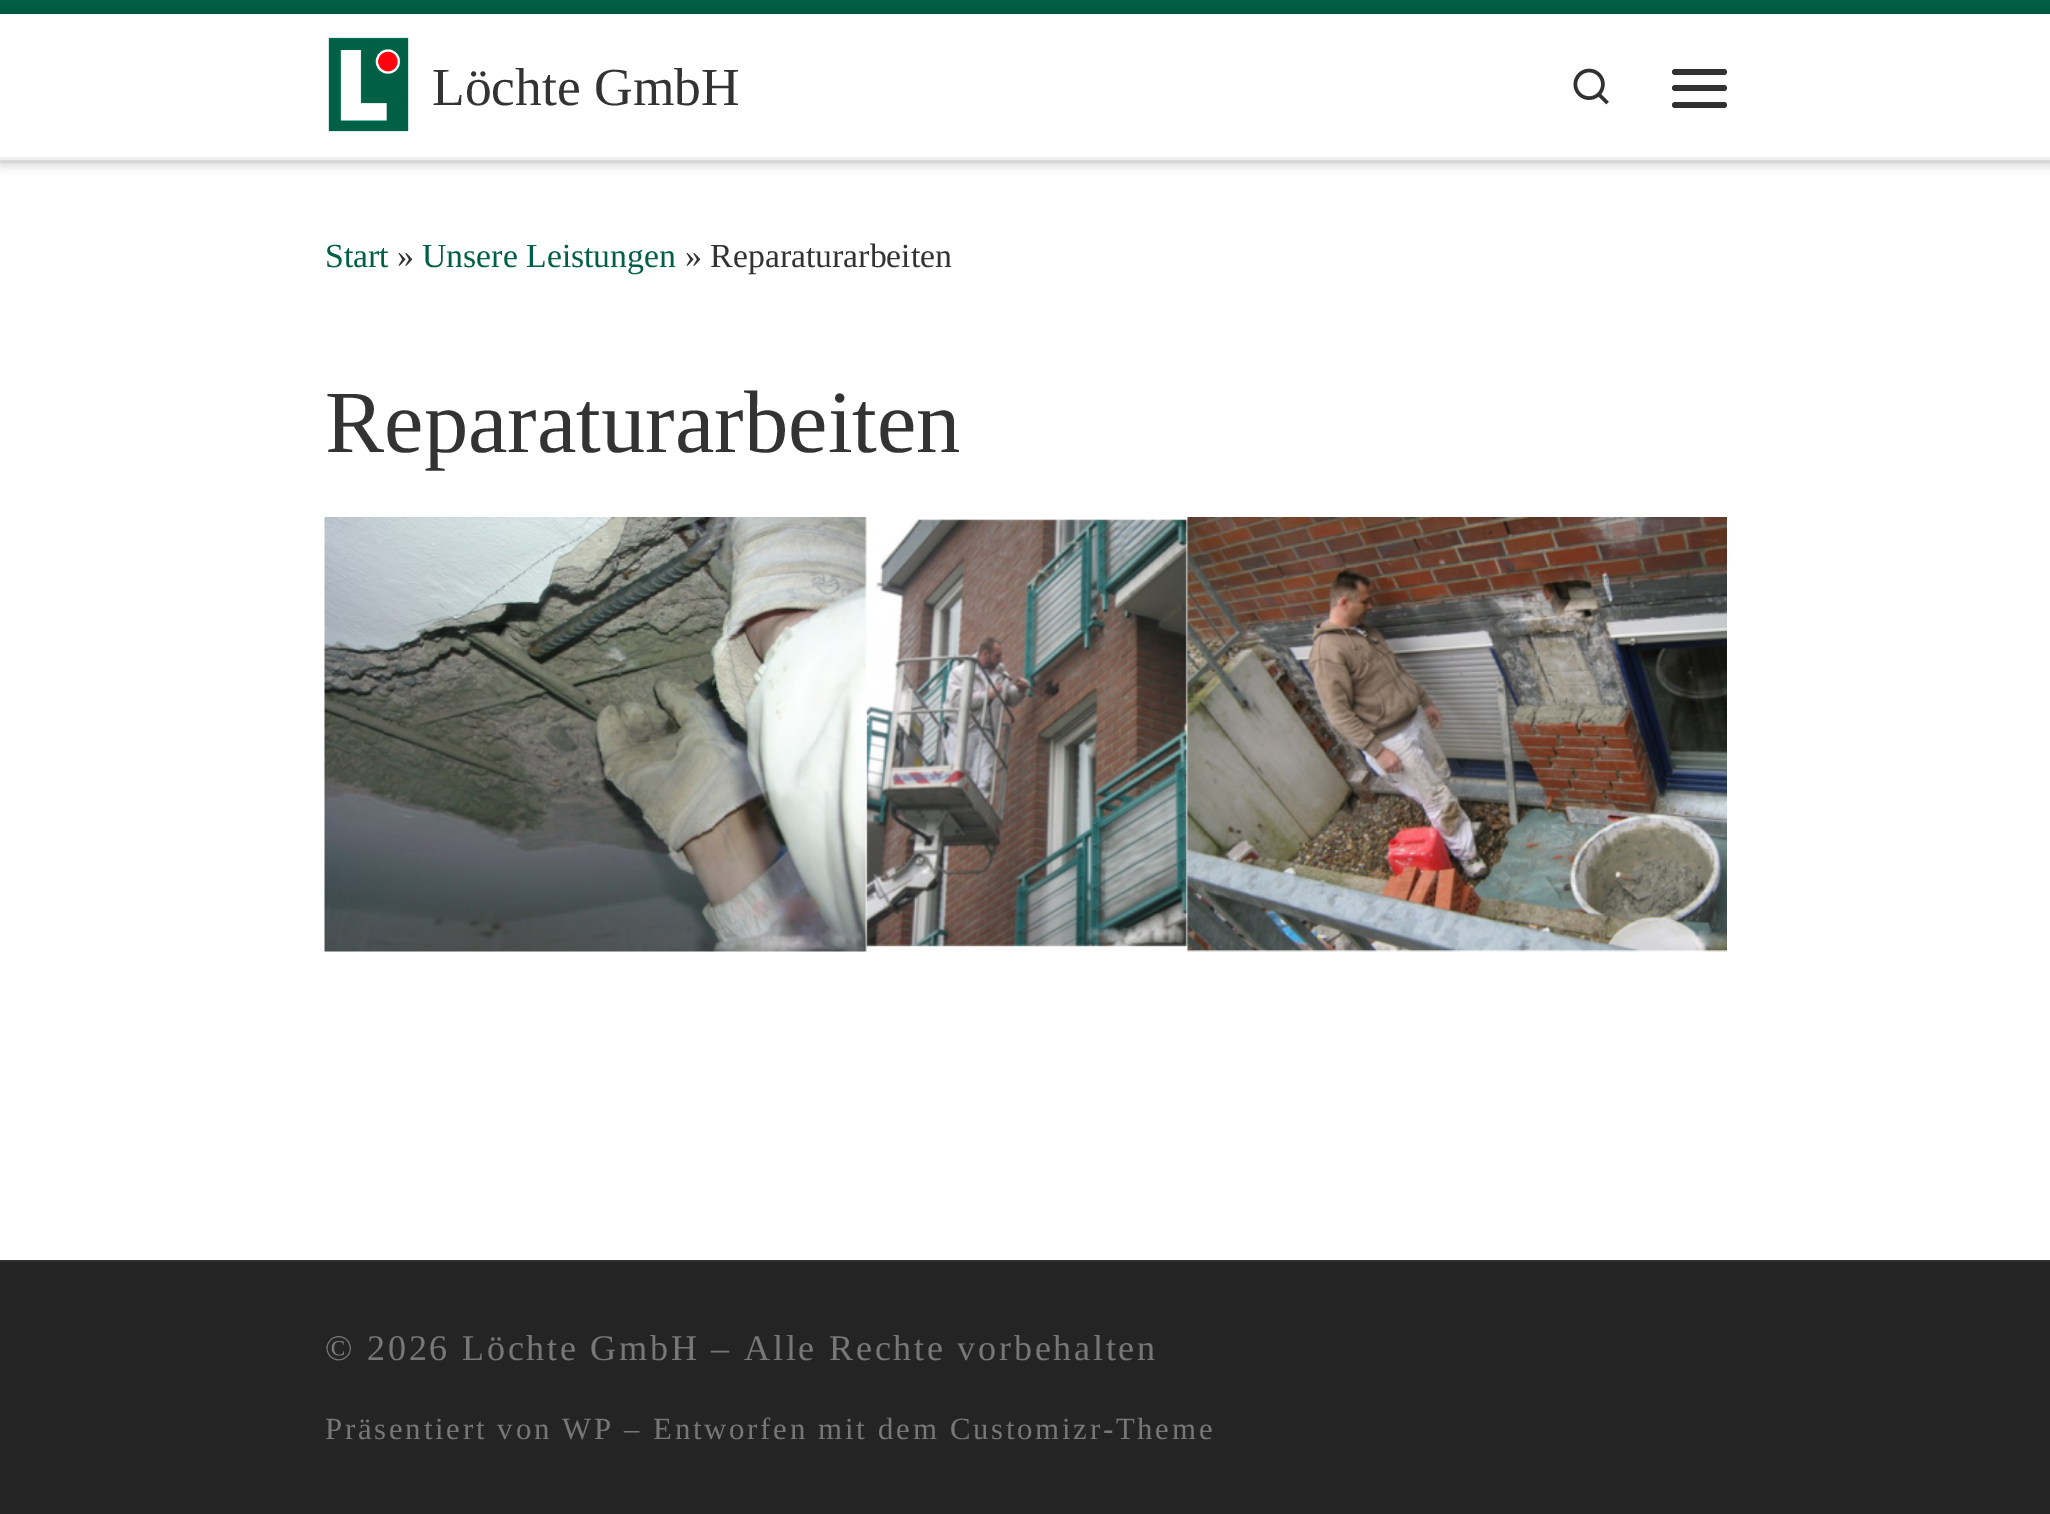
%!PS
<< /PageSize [2050 1514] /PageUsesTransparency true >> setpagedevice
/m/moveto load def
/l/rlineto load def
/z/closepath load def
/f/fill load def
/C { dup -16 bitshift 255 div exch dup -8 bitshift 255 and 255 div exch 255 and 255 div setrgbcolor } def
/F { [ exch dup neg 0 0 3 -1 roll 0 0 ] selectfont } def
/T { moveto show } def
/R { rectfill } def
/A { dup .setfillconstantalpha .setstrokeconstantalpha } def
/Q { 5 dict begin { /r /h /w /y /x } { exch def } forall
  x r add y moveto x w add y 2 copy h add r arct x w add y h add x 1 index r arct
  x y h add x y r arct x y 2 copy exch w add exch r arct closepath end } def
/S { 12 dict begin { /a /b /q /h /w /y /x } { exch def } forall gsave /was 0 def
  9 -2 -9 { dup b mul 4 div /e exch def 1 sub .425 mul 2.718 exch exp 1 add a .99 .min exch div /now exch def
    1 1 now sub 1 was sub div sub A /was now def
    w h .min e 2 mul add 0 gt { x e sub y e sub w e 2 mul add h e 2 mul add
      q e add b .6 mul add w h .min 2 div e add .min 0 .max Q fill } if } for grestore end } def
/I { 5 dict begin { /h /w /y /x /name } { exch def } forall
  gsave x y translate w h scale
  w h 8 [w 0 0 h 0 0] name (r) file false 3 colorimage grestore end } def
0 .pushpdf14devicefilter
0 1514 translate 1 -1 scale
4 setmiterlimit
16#FFFFFF C
0 0 2050 1514 R
16#666666 C
0 6 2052 162 0 3 .08 S
16#006045 C
0 0 2050 14 R
0.09 A
16#313131 C
0 162 2050 1 R
1 A
16#EFEFEF C
0 160 m 0 2 l 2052 0 l 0 -145 l 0 143 l z f
16#000000 C
0 14 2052 146 0 7 .2 S
16#FFFFFF C
0 14 2050 143 R
(1.rgb) 328 37 81 95 I
/LiberationSerif-Regular 53.5 F
16#333333 C
(Löchte GmbH) 432 105 T
(2.rgb) 1573 68 36 37 I
16#313131 C
1672 69 55 6 3 Q f
1672 85 55 6 3 Q f
1672 102 55 6 3 Q f
16#F0F0F0 C
0 157 2050 3 R
/LiberationSerif-Regular 33.75 F
16#006045 C
(Start) 325 267 T
16#333333 C
(») 397 267 T
16#006045 C
(Unsere Leistungen) 422 267 T
16#333333 C
(» Reparaturarbeiten) 685 267 T
/LiberationSerif-Regular 88.75 F
(Reparaturarbeiten) 325 452 T
(3.rgb) 324 517 1403 435 I
16#313131 C
0 1260 2050 2 R
16#242424 C
0 1262 2050 252 R
/LiberationSerif-Regular 36.1 F
16#777777 C
325 1360 m 2.75 0 (© 2026 Löchte GmbH – Alle Rechte vorbehalten) ashow
/LiberationSerif-Regular 30.8 F
325 1439 m 2.75 0 (Präsentiert von WP – Entworfen mit dem Customizr-Theme) ashow
.poppdf14devicefilter showpage
